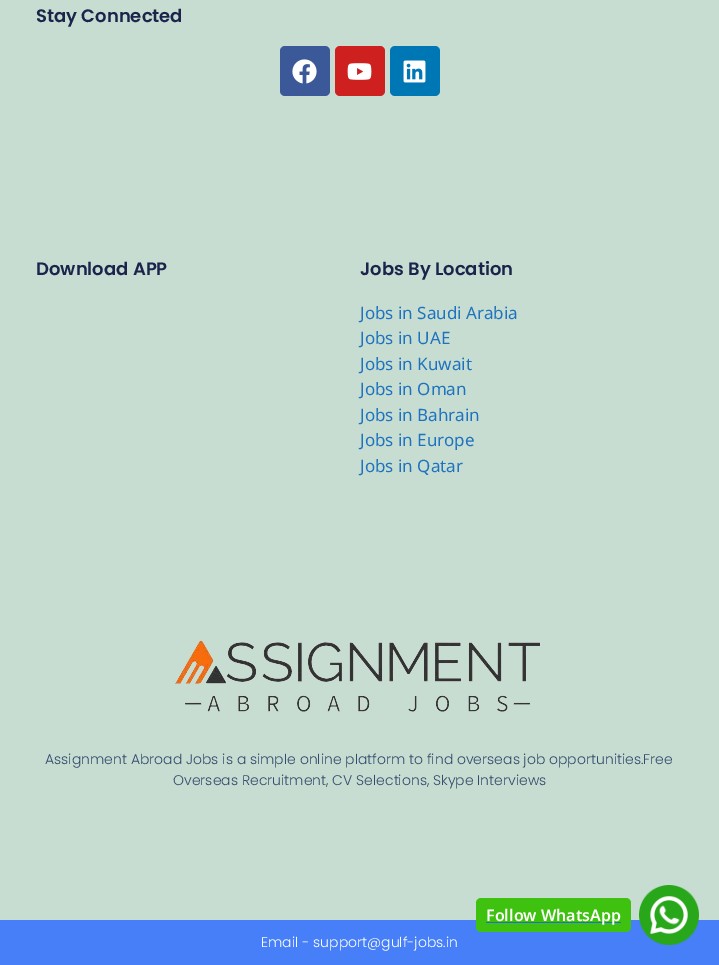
%!PS
<< /PageSize [719 965] /PageUsesTransparency true >> setpagedevice
/f/fill load def
/C { dup -16 bitshift 255 div exch dup -8 bitshift 255 and 255 div exch 255 and 255 div setrgbcolor } def
/F { [ exch dup neg 0 0 3 -1 roll 0 0 ] selectfont } def
/T { moveto show } def
/R { rectfill } def
/A { dup .setfillconstantalpha .setstrokeconstantalpha } def
/Q { 5 dict begin { /r /h /w /y /x } { exch def } forall
  x r add y moveto x w add y 2 copy h add r arct x w add y h add x 1 index r arct
  x y h add x y r arct x y 2 copy exch w add exch r arct closepath end } def
/S { 12 dict begin { /a /b /q /h /w /y /x } { exch def } forall gsave /was 0 def
  9 -2 -9 { dup b mul 4 div /e exch def 1 sub .425 mul 2.718 exch exp 1 add a .99 .min exch div /now exch def
    1 1 now sub 1 was sub div sub A /was now def
    w h .min e 2 mul add 0 gt { x e sub y e sub w e 2 mul add h e 2 mul add
      q e add b .6 mul add w h .min 2 div e add .min 0 .max Q fill } if } for grestore end } def
/I { 5 dict begin { /h /w /y /x /name } { exch def } forall
  gsave x y translate w h scale
  w h 8 [w 0 0 h 0 0] name (r) file false 3 colorimage grestore end } def
0 .pushpdf14devicefilter
0 965 translate 1 -1 scale
4 setmiterlimit
16#FFFFFF C
0 0 719 965 R
16#5108DC C
0 -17 719 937 2 5 .5 S
16#C7DDD1 C
0 -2 719 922 2 Q f
/Poppins-SemiBold 18 F
16#1C244B C
(Stay Connected) 36 22 T
16#3B5998 C
280 46 50 50 5 Q f
(1.rgb) 292 59 25 25 I
16#CD201F C
335 46 50 50 5 Q f
(2.rgb) 347 63 25 17 I
16#0077B5 C
390 46 50 50 5 Q f
(3.rgb) 403 60 23 23 I
16#1C244B C
(Download APP) 36 275 T
(Jobs By Location) 360 275 T
/NotoSans-Regular 17 F
16#1E73BE C
(Jobs in Saudi Arabia) 360 319 T
(Jobs in UAE) 360 344 T
(Jobs in Kuwait) 360 370 T
(Jobs in Oman) 360 395 T
(Jobs in Bahrain) 360 421 T
(Jobs in Europe) 360 446 T
(Jobs in Qatar) 360 472 T
(4.rgb) 175 640 365 72 I
/Poppins-Light 14 F
16#324A6D C
(Assignment Abroad Jobs is a simple online platform to find overseas job opportunities.Free) 45 764 T
(Overseas Recruitment, CV Selections, Skype Interviews) 173 785 T
16#467FF7 C
0 920 719 45 R
16#FFFFFF C
(Email - support@gulf-jobs.in) 261 947 T
16#3FC20F C
476 898 155 34 5 Q f
16#1E73BE C
486 922 135 1 R
/NotoSans-SemiBold 16 F
16#FFFFFF C
(Follow WhatsApp) 486 921 T
(5.rgb) 639 885 60 60 I
.poppdf14devicefilter showpage
